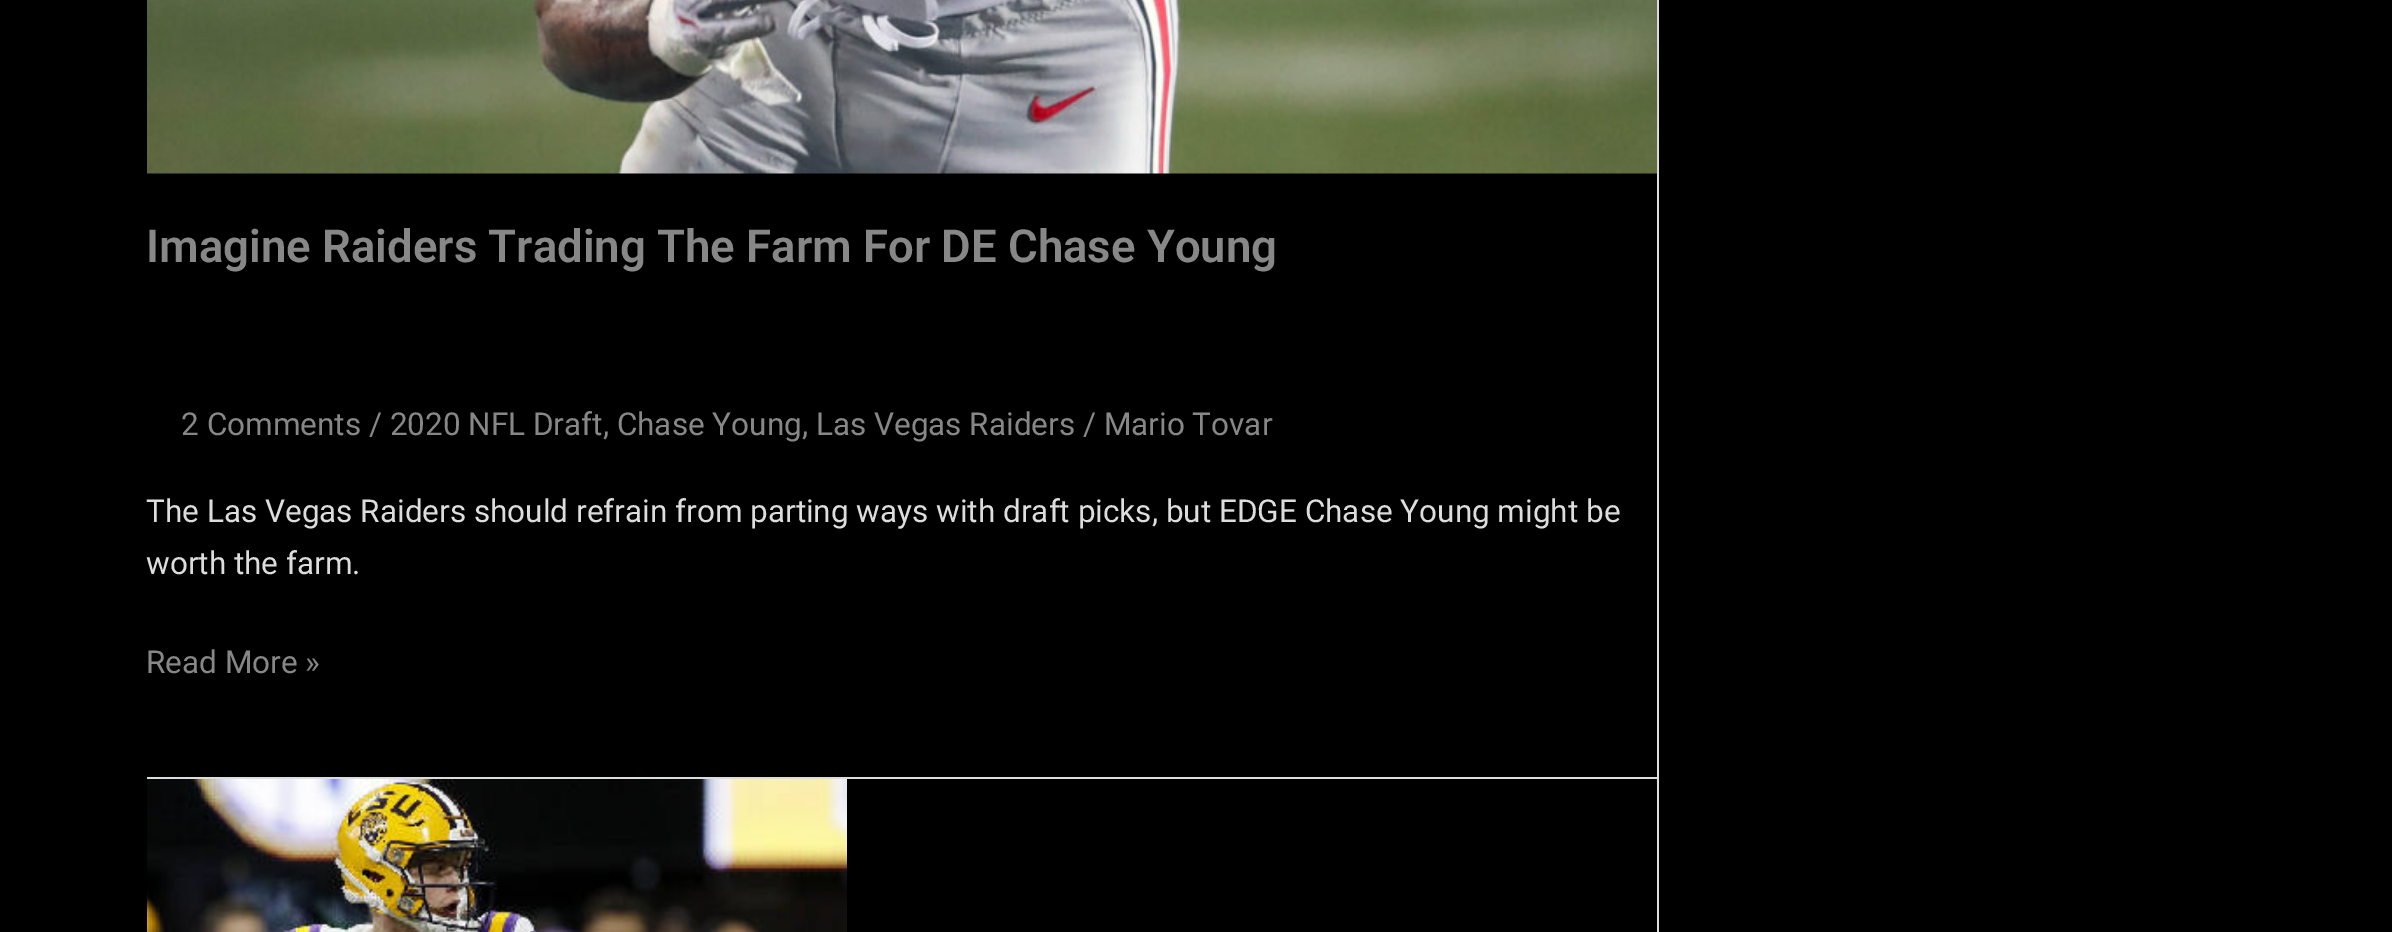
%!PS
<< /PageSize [2392 932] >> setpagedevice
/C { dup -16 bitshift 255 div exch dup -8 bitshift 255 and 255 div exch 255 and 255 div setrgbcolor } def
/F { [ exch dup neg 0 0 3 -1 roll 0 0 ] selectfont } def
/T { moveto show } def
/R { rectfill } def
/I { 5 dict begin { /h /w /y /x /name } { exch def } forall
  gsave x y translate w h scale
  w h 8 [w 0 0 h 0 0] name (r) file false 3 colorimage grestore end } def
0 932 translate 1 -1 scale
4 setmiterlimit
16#000000 C
0 0 2392 932 R
16#DDDDDD C
1657 0 2 932 R
147 777 1510 2 R
(1.rgb) 147 0 1511 174 I
/Roboto-SemiBold 45.5 F
16#878787 C
(Imagine Raiders Trading The Farm For DE Chase Young) 146 262 T
/Roboto-Regular 31.5 F
(2 Comments / 2020 NFL Draft, Chase Young, Las Vegas Raiders / Mario Tovar) 181 435 T
16#DDDDDD C
(The Las Vegas Raiders should refrain from parting ways with draft picks, but EDGE Chase Young might be) 146 522 T
(worth the farm.) 146 574 T
16#878787 C
(Read More ») 146 673 T
(2.rgb) 147 779 700 153 I
showpage
